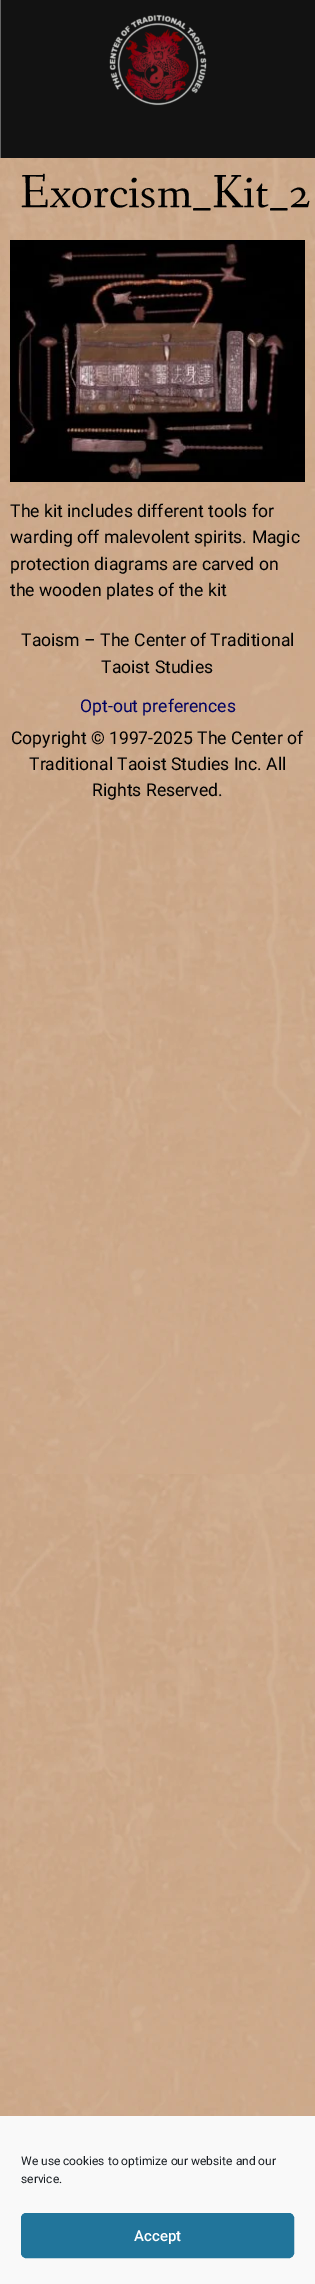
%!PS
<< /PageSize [315 2284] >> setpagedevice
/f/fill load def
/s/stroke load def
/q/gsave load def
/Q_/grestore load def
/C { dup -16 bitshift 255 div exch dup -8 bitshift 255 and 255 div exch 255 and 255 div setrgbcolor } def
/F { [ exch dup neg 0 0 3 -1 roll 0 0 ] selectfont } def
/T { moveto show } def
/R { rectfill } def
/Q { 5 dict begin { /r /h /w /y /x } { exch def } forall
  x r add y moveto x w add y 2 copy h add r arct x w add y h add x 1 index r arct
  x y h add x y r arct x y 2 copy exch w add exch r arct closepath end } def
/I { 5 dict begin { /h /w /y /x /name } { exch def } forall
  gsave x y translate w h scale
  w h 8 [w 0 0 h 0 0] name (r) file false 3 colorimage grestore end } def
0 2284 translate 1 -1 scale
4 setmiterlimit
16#FFFFFF C
0 0 315 2284 R
(1.rgb) 0 158 315 1958 I
16#121212 C
1 0 314 158 R
16#656565 C
0 0 1 158 R
(2.rgb) 109 14 98 92 I
/FanwoodText-Regular 48 F
16#000000 C
(Exorcism_Kit_2) 20 207 T
(3.rgb) 10 240 295 242 I
/Roboto-Regular 17.6 F
(The kit includes different tools for) 10 517 T
(warding off malevolent spirits. Magic) 10 543 T
(protection diagrams are carved on) 10 570 T
(the wooden plates of the kit) 10 596 T
(Taoism – The Center of Traditional) 21 646 T
(Taoist Studies) 101 673 T
16#000160 C
(Opt-out preferences) 80 712 T
16#000000 C
(Copyright © 1997-2025 The Center of) 11 744 T
(Traditional Taoist Studies Inc. All) 29 770 T
(Rights Reserved.) 92 796 T
16#F9F9F9 C
0 2116 315 168 R
/Roboto-Regular 12 F
16#191E23 C
(We use cookies to optimize our website and our) 21 2165 T
(service.) 21 2183 T
16#21759B C
21.5 2213.5 272 44 4.5 Q q f Q_
s
/Roboto-Medium 15 F
16#FFFFFF C
(Accept) 134 2241 T
showpage
